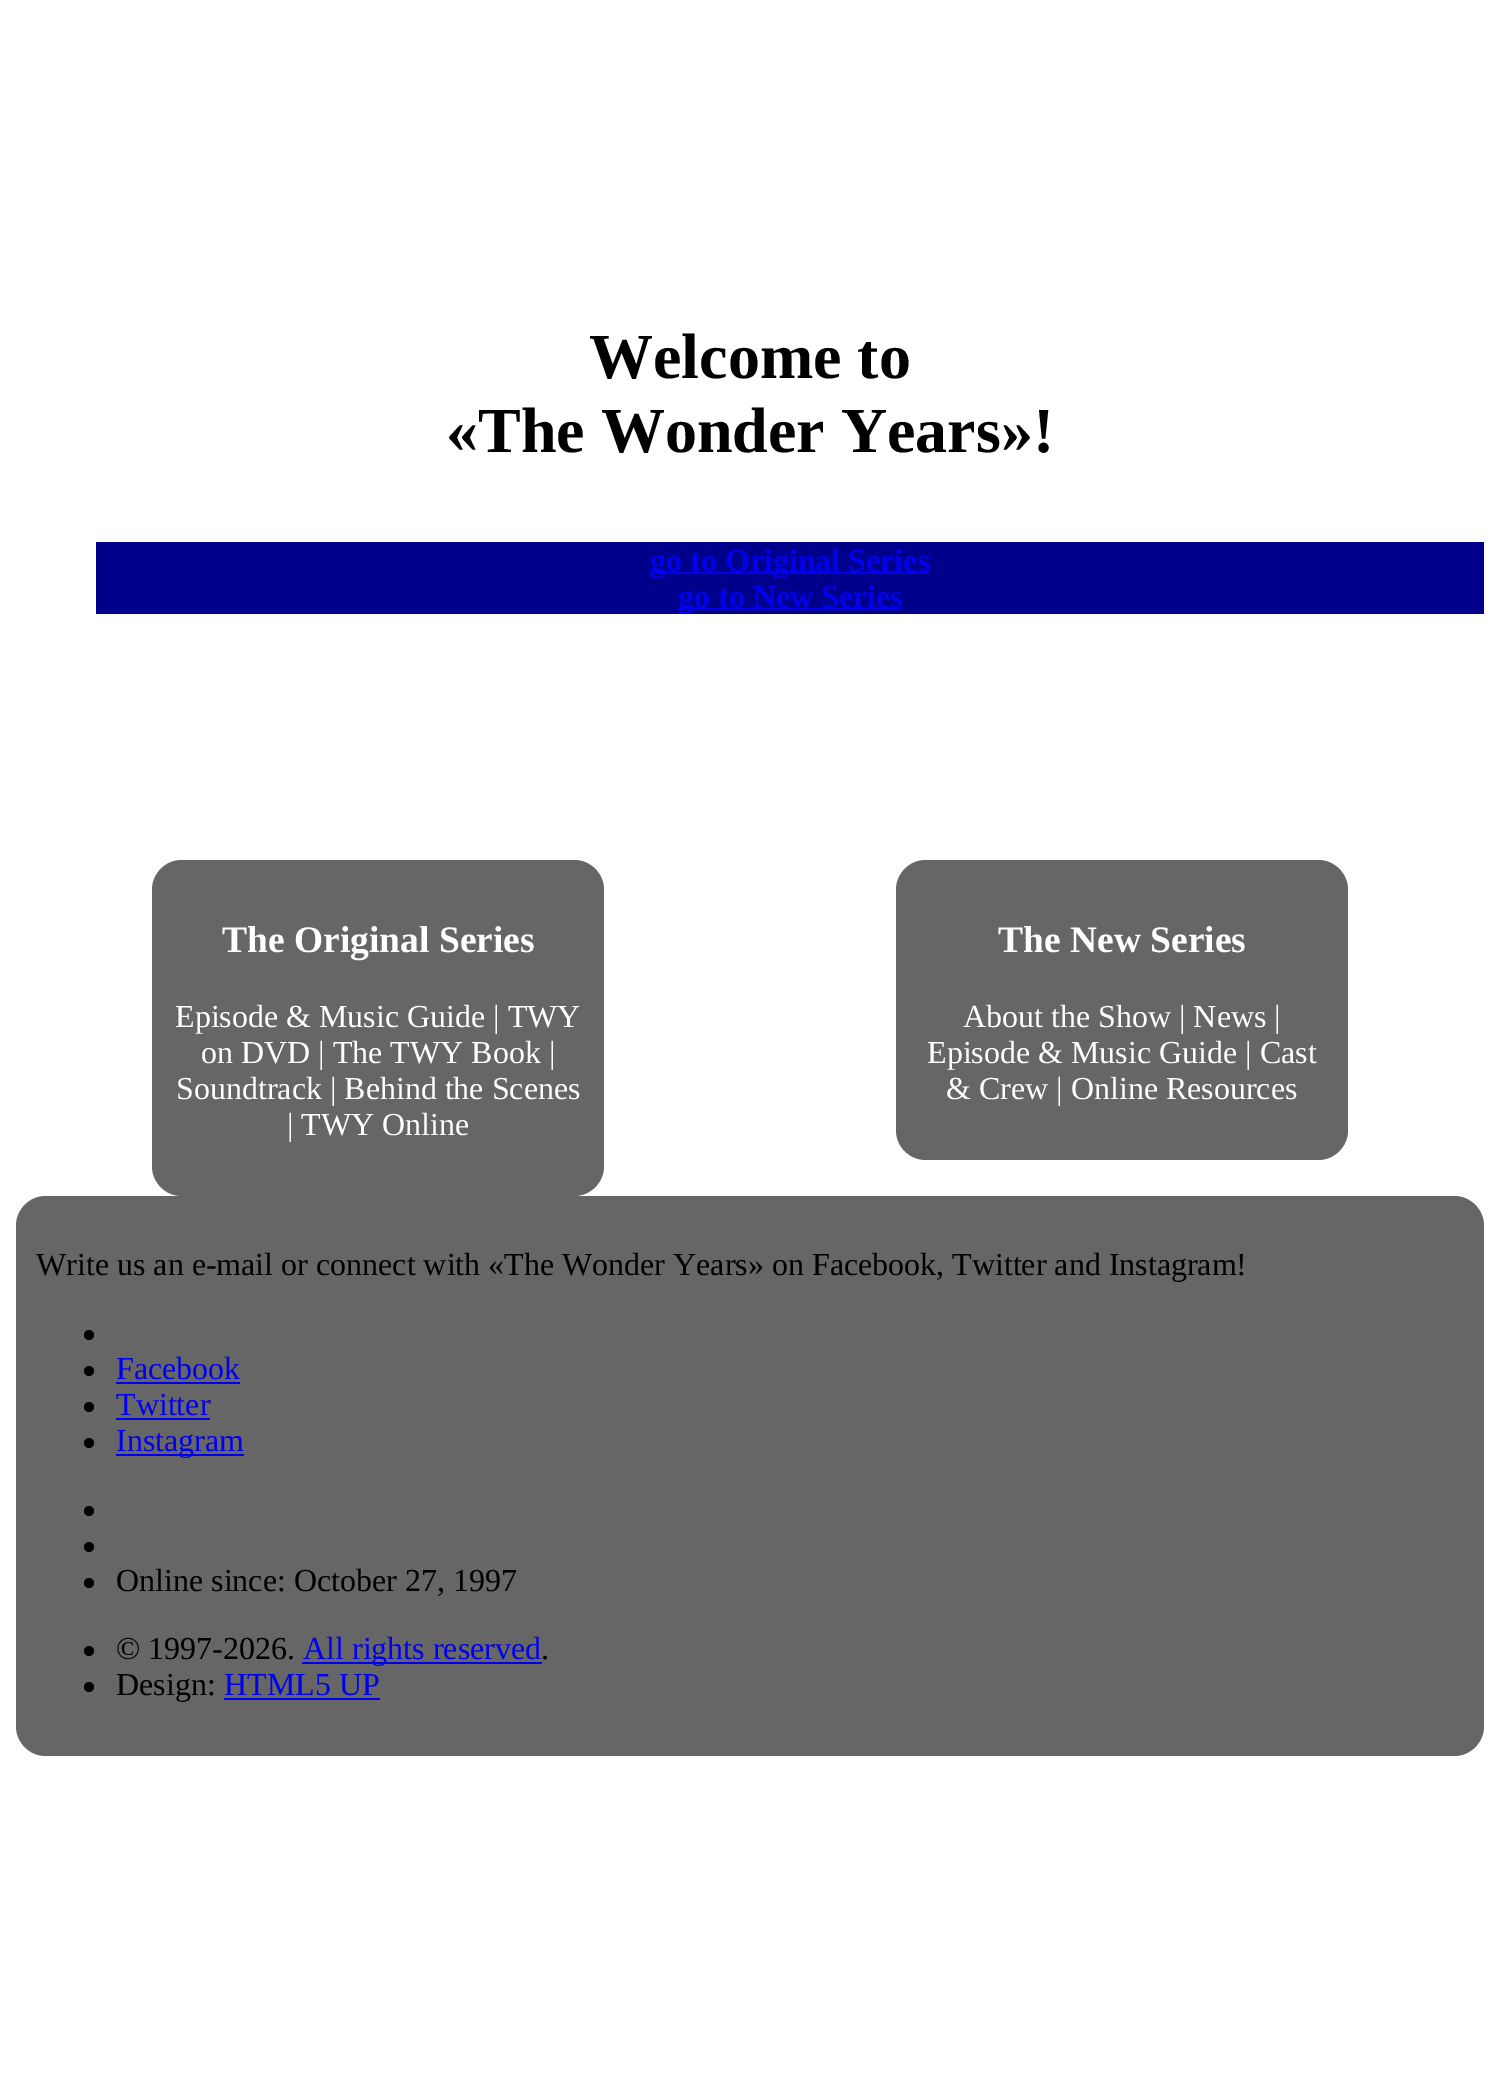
%!PS
<< /PageSize [1500 2096] >> setpagedevice
/f/fill load def
/C { dup -16 bitshift 255 div exch dup -8 bitshift 255 and 255 div exch 255 and 255 div setrgbcolor } def
/F { [ exch dup neg 0 0 3 -1 roll 0 0 ] selectfont } def
/T { moveto show } def
/R { rectfill } def
/O { newpath 0 360 arc closepath } def
/Q { 5 dict begin { /r /h /w /y /x } { exch def } forall
  x r add y moveto x w add y 2 copy h add r arct x w add y h add x 1 index r arct
  x y h add x y r arct x y 2 copy exch w add exch r arct closepath end } def
0 2096 translate 1 -1 scale
4 setmiterlimit
16#FFFFFF C
0 0 1500 2096 R
/LiberationSerif-Bold 64 F
16#000000 C
(Welcome to) 589 378 T
(«The Wonder Years»!) 446 452 T
16#00008B C
96 542 1388 72 R
16#0000EE C
650 572 280 2 R
/LiberationSerif-Bold 32 F
(go to Original Series) 650 571 T
678 608 224 2 R
(go to New Series) 678 607 T
16#666666 C
152 860 452 336 30 Q f
/LiberationSerif-Bold 37.5 F
16#FFFFFF C
(The Original Series) 222 952 T
/LiberationSerif-Regular 32 F
(Episode & Music Guide | TWY) 175 1027 T
(on DVD | The TWY Book |) 201 1063 T
(Soundtrack | Behind the Scenes) 176 1099 T
(| TWY Online) 287 1135 T
16#666666 C
896 860 452 300 30 Q f
/LiberationSerif-Bold 37.5 F
16#FFFFFF C
(The New Series) 998 952 T
/LiberationSerif-Regular 32 F
(About the Show | News |) 963 1027 T
(Episode & Music Guide | Cast) 927 1063 T
(& Crew | Online Resources) 946 1099 T
16#666666 C
16 1196 1468 560 30 Q f
16#000000 C
(Write us an e-mail or connect with «The Wonder Years» on Facebook, Twitter and Instagram!) 36 1275 T
89 1335 5 O f
89 1371 5 O f
16#0000EE C
(Facebook) 116 1379 T
116 1382 124 2 R
16#000000 C
89 1407 5 O f
16#0000EE C
(Twitter) 116 1415 T
116 1418 94 2 R
16#000000 C
89 1443 5 O f
16#0000EE C
116 1454 128 2 R
(Instagram) 116 1451 T
16#000000 C
89 1511 5 O f
89 1547 5 O f
89 1583 5 O f
(Online since: October 27, 1997) 116 1591 T
89 1651 5 O f
(© 1997-2026.) 116 1659 T
16#0000EE C
302 1662 240 2 R
(All rights reserved) 303 1659 T
16#000000 C
(.) 541 1659 T
89 1687 5 O f
(Design:) 116 1695 T
16#0000EE C
(HTML5 UP) 224 1695 T
224 1698 156 2 R
showpage
